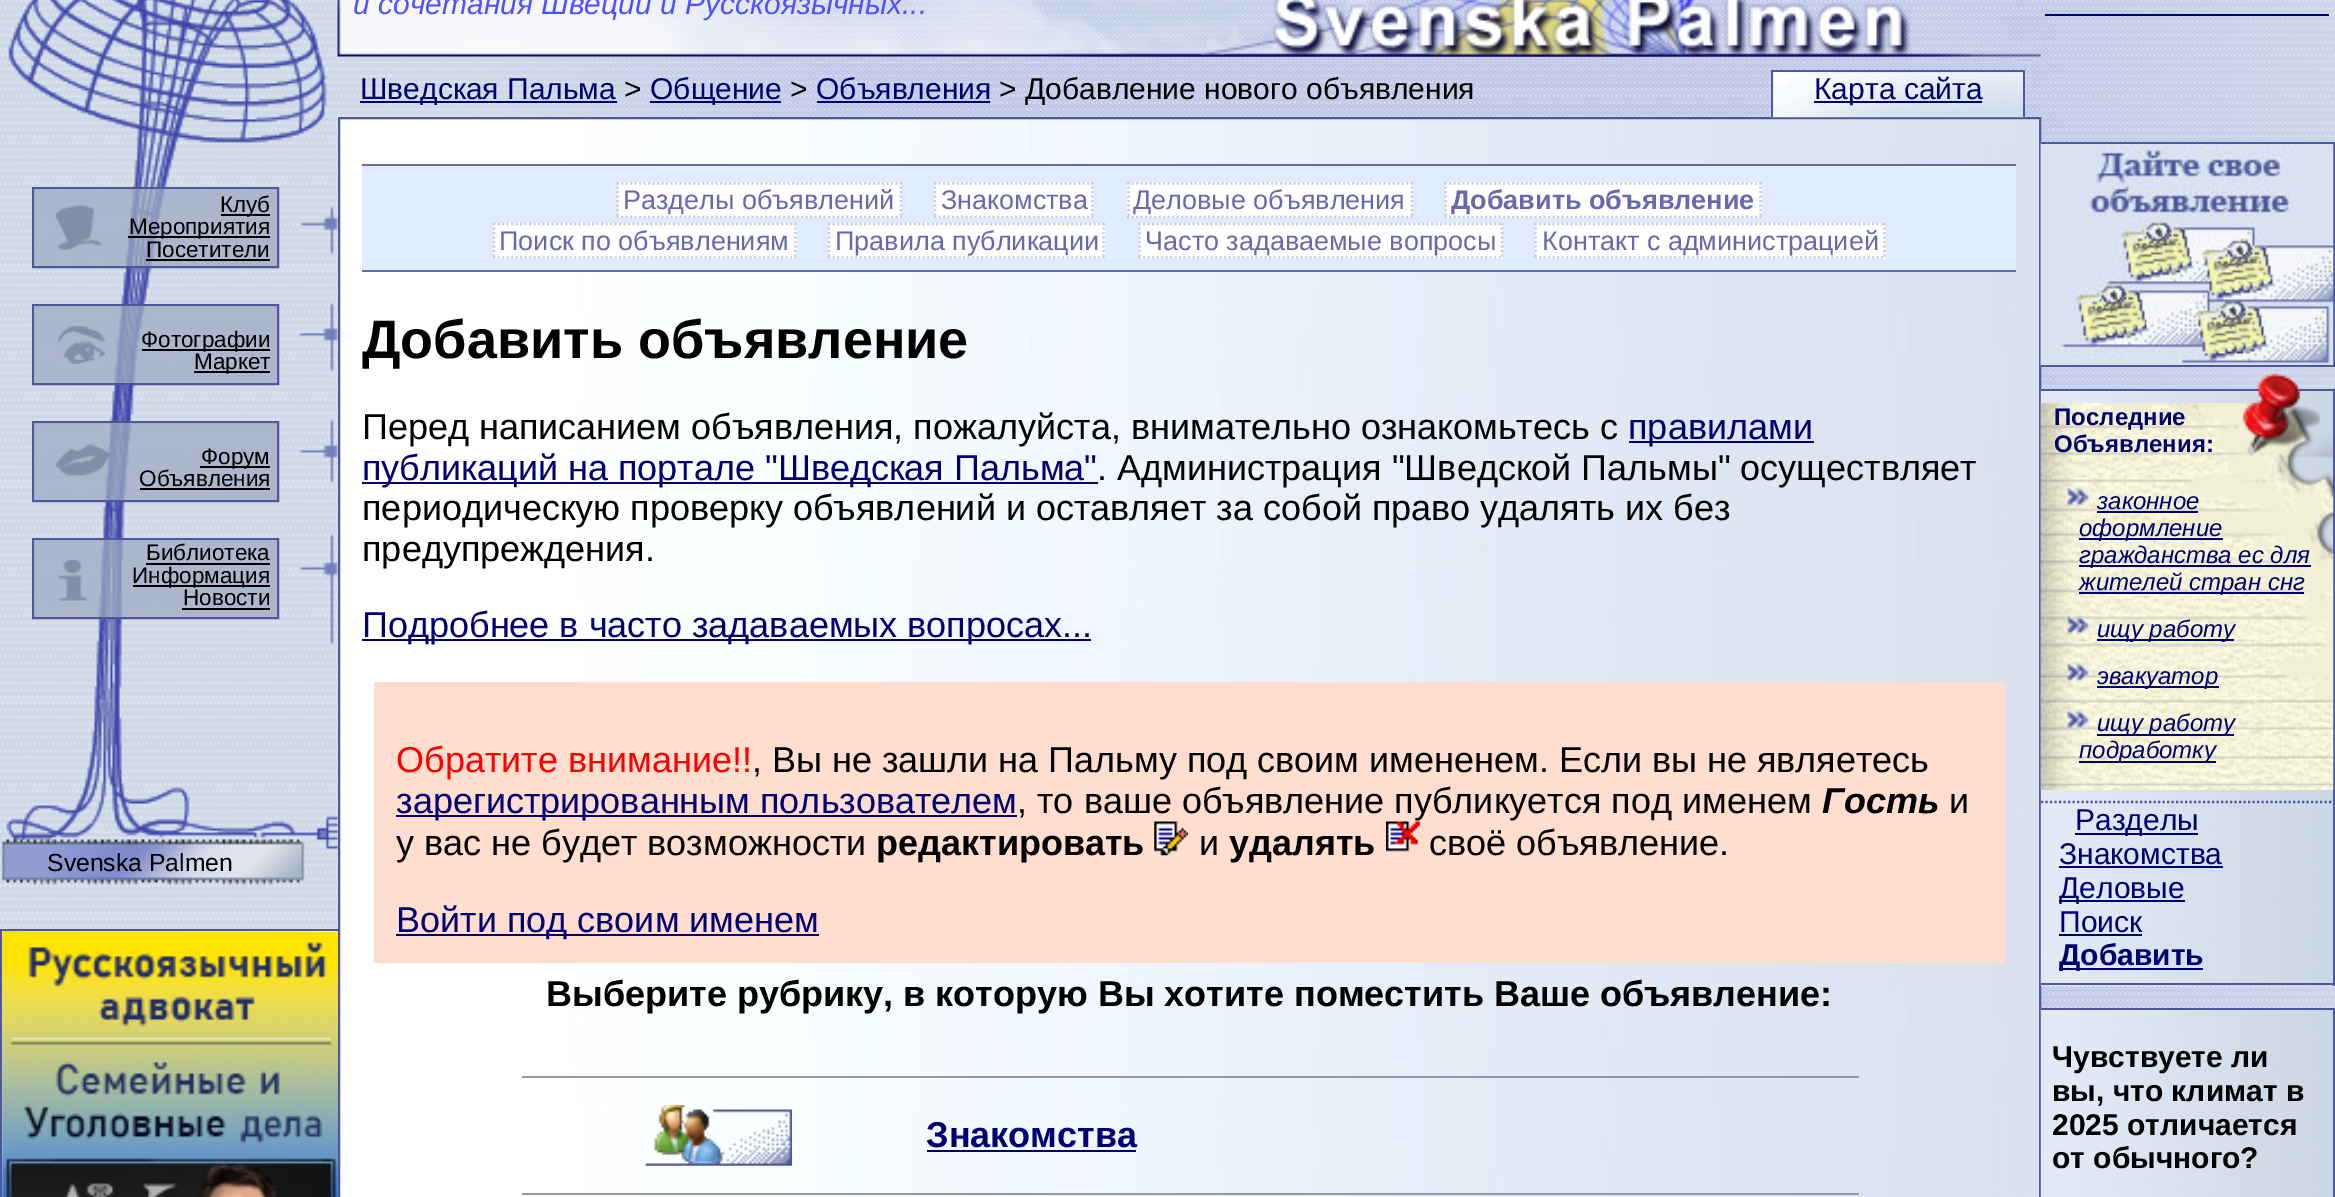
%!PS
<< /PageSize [2335 1197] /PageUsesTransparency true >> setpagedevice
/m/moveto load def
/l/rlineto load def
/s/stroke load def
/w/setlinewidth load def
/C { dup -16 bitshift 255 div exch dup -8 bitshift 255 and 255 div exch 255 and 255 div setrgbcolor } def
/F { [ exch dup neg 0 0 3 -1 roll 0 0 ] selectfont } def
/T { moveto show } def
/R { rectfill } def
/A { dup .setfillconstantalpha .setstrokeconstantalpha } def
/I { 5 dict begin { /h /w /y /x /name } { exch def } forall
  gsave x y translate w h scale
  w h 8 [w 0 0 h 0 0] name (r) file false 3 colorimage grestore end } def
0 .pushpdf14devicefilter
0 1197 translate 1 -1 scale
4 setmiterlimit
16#FFFFFF C
0 0 2335 1197 R
(1.rgb) 0 0 2335 1008 I
(2.rgb) 1 0 337 886 I
16#50569A C
2 w
33 188 245 79 rectstroke
0.75 A
16#9FA9C2 C
34 189 243 77 R
1 A
(3.rgb) 55 205 47 45 I
16#000000 C
221 214 49 2 R
/LiberationSans-Regular 22.5 F
(Клуб) 220 212 T
128 236 142 2 R
(Мероприятия) 129 234 T
(Посетители) 146 257 T
146 259 124 2 R
16#50569A C
33 305 245 79 rectstroke
0.75 A
16#9FA9C2 C
34 306 243 77 R
1 A
(4.rgb) 58 326 48 38 I
16#000000 C
142 349 128 2 R
(Фотографии) 141 347 T
194 371 76 2 R
(Маркет) 194 369 T
16#50569A C
33 422 245 79 rectstroke
0.75 A
16#9FA9C2 C
34 423 243 77 R
1 A
(5.rgb) 55 444 55 32 I
16#000000 C
200 466 70 2 R
(Форум) 201 464 T
(Объявления) 139 486 T
140 488 130 2 R
16#50569A C
33 539 245 79 rectstroke
0.75 A
16#9FA9C2 C
34 540 243 77 R
1 A
(6.rgb) 58 560 29 41 I
16#000000 C
(Библиотека) 146 560 T
146 563 124 2 R
133 585 137 2 R
(Информация) 132 583 T
(Новости) 183 605 T
182 608 88 2 R
/LiberationSans-Regular 24.75 F
(Svenska Palmen) 47 871 T
(7.rgb) 2 931 336 266 I
16#50569A C
0 929 340 2 R
0 929 2 268 R
(8.rgb) 2 931 336 266 I
(9.rgb) 337 0 1704 57 I
(10.rgb) 1049 0 922 57 I
/LiberationSans-Italic 30 F
16#4F51FD C
(и сочетания Швеции и Русскоязычных...) 353 14 T
16#000072 C
360 101 257 2 R
/LiberationSans-Regular 30 F
(Шведская Пальма) 360 99 T
16#000000 C
(>) 624 99 T
16#000072 C
650 101 131 2 R
(Общение) 650 99 T
16#000000 C
(>) 790 99 T
16#000072 C
(Объявления) 816 99 T
817 101 173 2 R
16#000000 C
(> Добавление нового объявления) 999 99 T
16#E4F0FA C
340 119 1699 1078 R
(11.rgb) 340 119 1699 1078 I
16#50569A C
339 118 1701 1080 rectstroke
16#E2ECFF C
362 166 1654 104 R
16#6868AE C
362 164 1654 2 R
362 270 1654 2 R
16#FFFFFF C
617 182 285 36 R
16#CBCBD9 C
2.2 w
[2.25 2.25] 0 setdash
616.5 183.5 m 285.5 0 l s
901 182 m 0 36 l s
616.5 217 m 285.5 0 l s
617.5 182 m 0 36 l s
/LiberationSans-Regular 27 F
16#6868AE C
(Разделы объявлений) 623 209 T
16#FFFFFF C
934 182 160 36 R
16#CBCBD9 C
934 183.5 m 159.5 0 l s
1092.5 182 m 0 36 l s
934 217 m 159.5 0 l s
935 182 m 0 36 l s
16#6868AE C
(Знакомства) 941 209 T
16#FFFFFF C
1127 182 286 36 R
16#CBCBD9 C
1127 183.5 m 286 0 l s
1412 182 m 0 36 l s
1127 217 m 286 0 l s
1128.5 182 m 0 36 l s
16#6868AE C
(Деловые объявления) 1133 209 T
16#FFFFFF C
1445 182 317 36 R
16#CBCBD9 C
1444.5 183.5 m 317.5 0 l s
1760.5 182 m 0 36 l s
1444.5 217 m 317.5 0 l s
1445.5 182 m 0 36 l s
/LiberationSans-Bold 27 F
16#6868AE C
(Добавить объявление) 1451 209 T
16#FFFFFF C
493 223 304 36 R
16#CBCBD9 C
493 224 m 303.5 0 l s
795.5 223 m 0 36 l s
493 257.5 m 303.5 0 l s
494 223 m 0 36 l s
/LiberationSans-Regular 27 F
16#6868AE C
(Поиск по объявлениям) 499 250 T
16#FFFFFF C
828 223 277 36 R
16#CBCBD9 C
828 224 m 277 0 l s
1103.5 223 m 0 36 l s
828 257.5 m 277 0 l s
829 223 m 0 36 l s
16#6868AE C
(Правила публикации) 835 250 T
16#FFFFFF C
1139 223 364 36 R
16#CBCBD9 C
1138.5 224 m 364.5 0 l s
1502 223 m 0 36 l s
1138.5 257.5 m 364.5 0 l s
1139.5 223 m 0 36 l s
16#6868AE C
(Часто задаваемые вопросы) 1145 250 T
16#FFFFFF C
1535 223 351 36 R
16#CBCBD9 C
1534.5 224 m 351 0 l s
1884.5 223 m 0 36 l s
1534.5 257.5 m 351 0 l s
1535.5 223 m 0 36 l s
16#6868AE C
(Контакт с администрацией) 1542 250 T
/LiberationSans-Bold 54 F
16#000000 C
(Добавить объявление) 362 358 T
/LiberationSans-Regular 36 F
(Перед написанием объявления, пожалуйста, внимательно ознакомьтесь с) 362 439 T
16#000072 C
1629 441 185 2 R
(правилами) 1628 439 T
362 482 736 2 R
(публикаций на портале "Шведская Пальма") 362 480 T
16#000000 C
(. Администрация "Шведской Пальмы" осуществляет) 1097 480 T
(периодическую проверку объявлений и оставляет за собой право удалять их без) 362 520 T
(предупреждения.) 362 561 T
16#000072 C
362 639 729 2 R
(Подробнее в часто задаваемых вопросах...) 362 637 T
16#FFDECF C
374 682 1631 281 R
16#FF0000 C
(Обратите внимание!!) 396 772 T
16#000000 C
(, Вы не зашли на Пальму под своим имененем. Если вы не являетесь) 752 772 T
16#000072 C
396 815 621 2 R
(зарегистрированным пользователем) 396 813 T
16#000000 C
(, то ваше объявление публикуется под именем) 1017 813 T
/LiberationSans-BoldItalic 36 F
(Гость) 1822 813 T
/LiberationSans-Regular 36 F
(и) 1949 813 T
(у вас не будет возможности) 396 855 T
/LiberationSans-Bold 36 F
(редактировать) 876 855 T
(12.rgb) 1154 821 34 35 I
/LiberationSans-Regular 36 F
(и) 1199 855 T
/LiberationSans-Bold 36 F
(удалять) 1229 855 T
(13.rgb) 1386 821 34 31 I
/LiberationSans-Regular 36 F
(своё объявление.) 1429 855 T
16#000072 C
396 934 423 2 R
(Войти под своим именем) 396 932 T
/LiberationSans-Bold 36 F
16#000000 C
(Выберите рубрику, в которую Вы хотите поместить Ваше объявление:) 546 1006 T
16#9696A5 C
522 1076 1337 2 R
(14.rgb) 645 1105 147 61 I
16#000072 C
(Знакомства) 926 1147 T
927 1150 209 2 R
16#9696A5 C
522 1193 1337 2 R
16#000072 C
2045 14 284 2 R
(15.rgb) 1770 70 255 48 I
16#50569A C
1771 70 254 2 R
2023 70 2 47 R
1771 70 2 47 R
16#000072 C
1814 101 168 2 R
/LiberationSans-Regular 30 F
(Карта сайта) 1814 99 T
(16.rgb) 2040 142 293 225 I
16#50569A C
2041 142 294 2 R
2333 142 2 225 R
2041 365 294 2 R
(17.rgb) 2040 144 294 221 I
(18.rgb) 2040 389 293 597 I
2041 389 294 2 R
2333 389 2 597 R
2041 983 294 2 R
(19.rgb) 2040 403 294 387 I
/LiberationSans-Bold 24 F
16#000072 C
(Последние) 2054 425 T
(Объявления:) 2054 452 T
(20.rgb) 2243 373 77 83 I
(21.rgb) 2067 488 22 19 I
/LiberationSans-Italic 24 F
(законное) 2097 509 T
2097 511 101 2 R
2079 538 144 2 R
(оформление) 2079 536 T
2079 565 232 2 R
(гражданства ес для) 2079 563 T
2079 592 225 2 R
(жителей стран снг) 2079 590 T
(22.rgb) 2067 616 22 20 I
2097 639 137 2 R
(ищу работу) 2097 637 T
(23.rgb) 2067 663 22 20 I
2097 686 122 2 R
(эвакуатор) 2097 684 T
(24.rgb) 2067 710 22 20 I
2097 734 137 2 R
(ищу работу) 2097 731 T
2079 761 137 2 R
(подработку) 2079 758 T
16#50569A C
2041 802 m 292 0 l s
16#000072 C
2075 833 123 2 R
/LiberationSans-Regular 30 F
(Разделы) 2075 830 T
(Знакомства) 2059 864 T
2059 866 164 2 R
2059 900 126 2 R
(Деловые) 2059 898 T
(Поиск) 2059 932 T
2059 934 83 2 R
2059 968 144 2 R
/LiberationSans-Bold 30 F
(Добавить) 2059 965 T
(25.rgb) 2040 1008 293 189 I
16#50569A C
2041 1008 294 2 R
2333 1008 2 189 R
16#000000 C
(Чувствуете ли) 2052 1067 T
(вы, что климат в) 2052 1101 T
(2025 отличается) 2052 1135 T
(от обычного?) 2052 1168 T
.poppdf14devicefilter showpage
